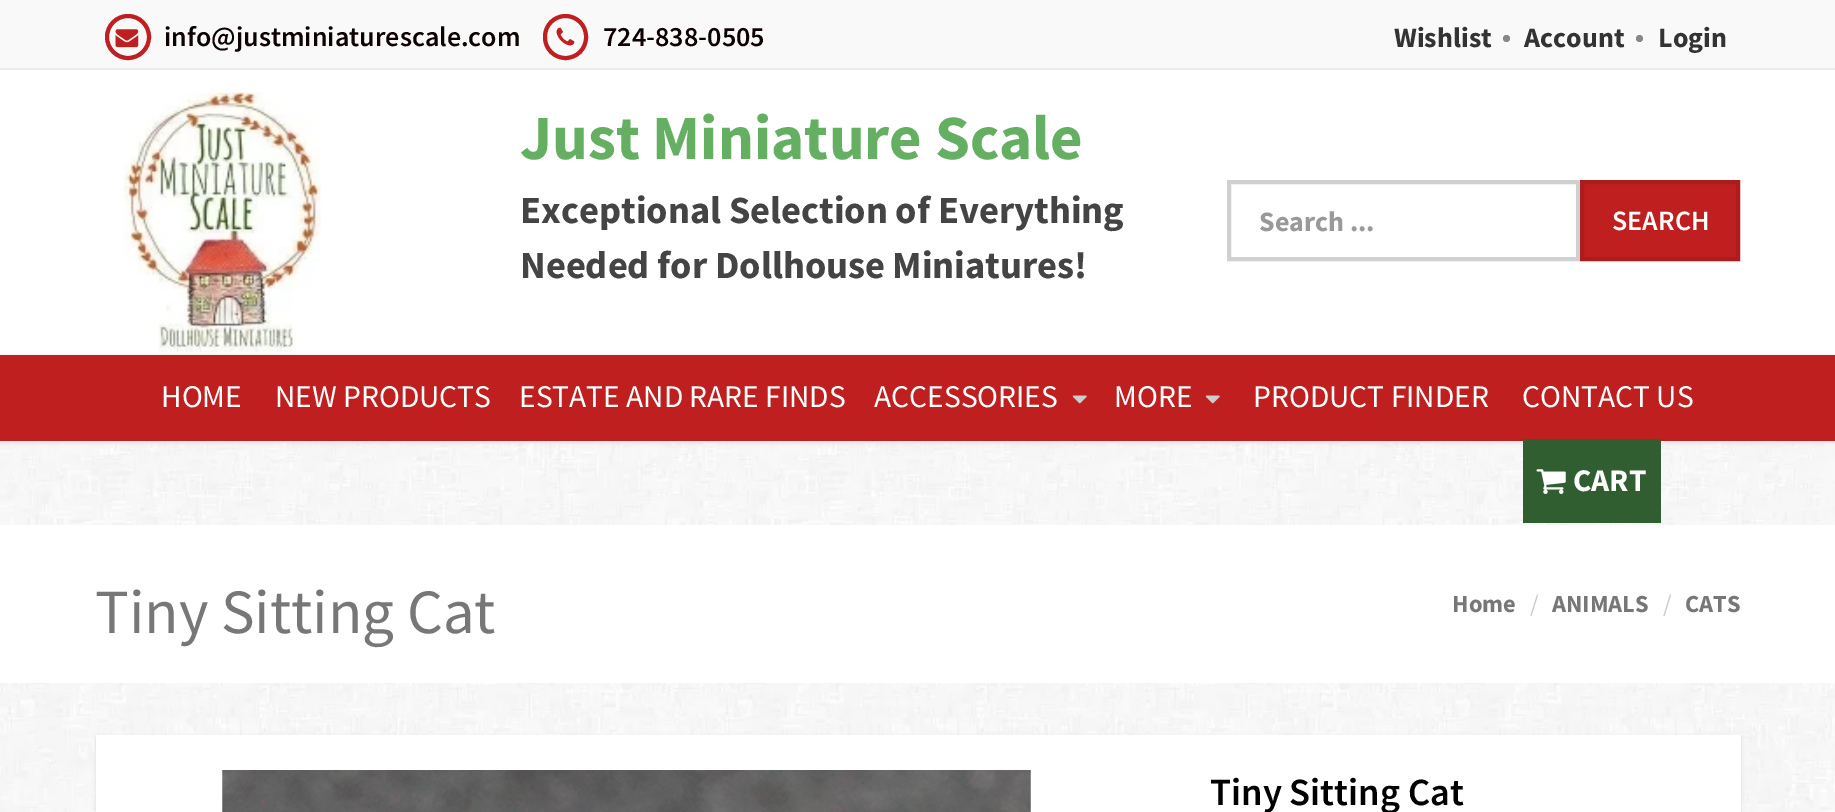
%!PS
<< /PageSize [1835 812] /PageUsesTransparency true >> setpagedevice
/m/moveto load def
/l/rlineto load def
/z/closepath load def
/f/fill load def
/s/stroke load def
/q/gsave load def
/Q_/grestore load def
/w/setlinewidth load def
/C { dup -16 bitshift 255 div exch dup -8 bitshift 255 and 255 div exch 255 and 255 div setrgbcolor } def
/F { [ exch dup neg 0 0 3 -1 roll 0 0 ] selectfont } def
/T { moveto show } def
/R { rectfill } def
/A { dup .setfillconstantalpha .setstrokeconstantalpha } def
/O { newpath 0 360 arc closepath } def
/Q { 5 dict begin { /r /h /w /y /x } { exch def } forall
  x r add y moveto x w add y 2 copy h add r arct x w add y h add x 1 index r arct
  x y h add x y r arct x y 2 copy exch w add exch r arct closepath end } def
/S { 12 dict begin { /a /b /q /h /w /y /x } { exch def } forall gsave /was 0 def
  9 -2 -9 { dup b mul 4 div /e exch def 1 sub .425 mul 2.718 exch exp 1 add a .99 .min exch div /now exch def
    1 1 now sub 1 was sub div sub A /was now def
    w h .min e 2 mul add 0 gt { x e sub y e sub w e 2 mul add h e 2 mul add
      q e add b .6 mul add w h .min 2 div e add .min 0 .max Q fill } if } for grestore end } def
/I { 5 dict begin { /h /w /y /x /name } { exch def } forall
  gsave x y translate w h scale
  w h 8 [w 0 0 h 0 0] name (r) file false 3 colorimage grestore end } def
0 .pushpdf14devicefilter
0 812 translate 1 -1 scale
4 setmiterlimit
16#FFFFFF C
0 0 1835 812 R
(1.rgb) 0 443 1835 369 I
16#F9F9F9 C
0 0 1835 68 R
16#EBEBEB C
0 68 1835 2 R
16#BF1F1F C
4 w
128 37 21 O s
(2.rgb) 115 29 24 19 I
/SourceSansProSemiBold-SemiBold 28 F
16#0E0202 C
(info@justminiaturescale.com) 164 46 T
16#BF1F1F C
545 16 41 42 20.5 Q s
(3.rgb) 556 27 19 19 I
16#0E0202 C
(724-838-0505) 603 46 T
/SourceSansPro-Bold 28 F
16#333333 C
(Wishlist) 1394 47 T
16#888888 C
1506.5 38.5 3.5 O f
16#333333 C
(Account) 1524 47 T
16#888888 C
1639.5 38.5 3.5 O f
16#333333 C
(Login) 1658 47 T
(4.rgb) 123 92 198 263 I
/SourceSansPro-Bold 63 F
16#64AF62 C
(Just Miniature Scale) 520 159 T
/SourceSansPro-Bold 38.5 F
16#444444 C
(Exceptional Selection of Everything) 520 223 T
(Needed for Dollhouse Miniatures!) 520 278 T
16#D0D0D0 C
1229 182 349 77 rectstroke
/SourceSansPro-Bold 28 F
16#999999 C
(Search ...) 1259 231 T
16#BF1F1F C
1582 182 m 156 0 l 0 77 l -156 0 l z q f Q_
16#AC1C1C C
s
/SourceSansProSemiBold-SemiBold 28 F
16#FFFFFF C
(SEARCH) 1612 230 T
16#000000 C
0 355 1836 88 0 2 .1 S
16#BF1F1F C
0 355 1835 86 R
16#EBEBEB C
0 441 1835 2 R
/SourceSansPro-Regular 31.5 F
16#FFFFFF C
(HOME) 161 407 T
(NEW PRODUCTS) 275 407 T
(ESTATE AND RARE FINDS) 519 407 T
(ACCESSORIES) 874 407 T
(5.rgb) 1072 395 15 9 I
(MORE) 1114 407 T
(5.rgb) 1205 395 15 9 I
(PRODUCT FINDER) 1253 407 T
(CONTACT US) 1522 407 T
16#315E30 C
1523 439 138 84 R
(6.rgb) 1536 469 30 25 I
/SourceSansPro-Bold 31.5 F
16#FFFFFF C
(CART) 1573 491 T
0 525 1835 158 R
/SourceSansPro-Regular 63 F
16#777777 C
(Tiny Sitting Cat) 95 633 T
/SourceSansPro-Bold 24.5 F
(Home) 1452 612 T
/SourceSansPro-Regular 24.5 F
16#CCCCCC C
(/) 1530 612 T
/SourceSansPro-Bold 24.5 F
16#777777 C
(ANIMALS) 1552 612 T
/SourceSansPro-Regular 24.5 F
16#CCCCCC C
(/) 1663 612 T
/SourceSansPro-Bold 24.5 F
16#777777 C
(CATS) 1685 612 T
16#000000 C
96 737 1645 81 0 2 .1 S
16#FFFFFF C
96 735 1645 77 R
(7.rgb) 222 770 809 42 I
/SourceSansProSemiBold-SemiBold 38.5 F
16#000000 C
(Tiny Sitting Cat) 1210 805 T
.poppdf14devicefilter showpage
